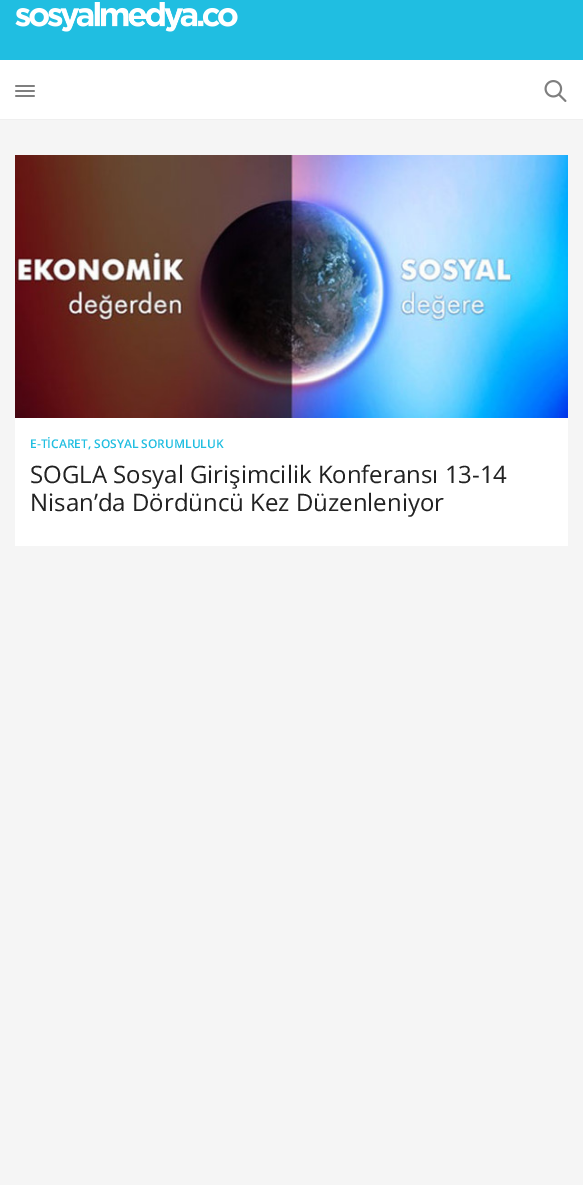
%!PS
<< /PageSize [583 1185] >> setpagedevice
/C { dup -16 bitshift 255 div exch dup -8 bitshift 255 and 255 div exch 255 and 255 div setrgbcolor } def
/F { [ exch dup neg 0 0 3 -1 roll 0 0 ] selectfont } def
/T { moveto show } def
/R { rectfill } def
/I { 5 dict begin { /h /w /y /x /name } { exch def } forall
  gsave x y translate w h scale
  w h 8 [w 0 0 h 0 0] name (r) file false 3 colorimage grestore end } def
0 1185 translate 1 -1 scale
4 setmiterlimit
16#F5F5F5 C
0 0 583 1185 R
16#20BEE1 C
0 0 583 60 R
(1.rgb) 15 2 223 30 I
16#FFFFFF C
0 60 583 59 R
16#EFEFEF C
0 119 583 1 R
(2.rgb) 15 85 20 12 I
(3.rgb) 544 80 23 22 I
16#FFFFFF C
15 418 553 128 R
(4.rgb) 15 155 553 263 I
/OpenSans-SemiBold 12 F
16#20BEE1 C
(E-TİCARET, SOSYAL SORUMLULUK) 30 448 T
/OpenSans-Regular 24 F
16#222222 C
(SOGLA Sosyal Girişimcilik Konferansı 13-14) 30 483 T
(Nisan’da Dördüncü Kez Düzenleniyor) 30 511 T
showpage
